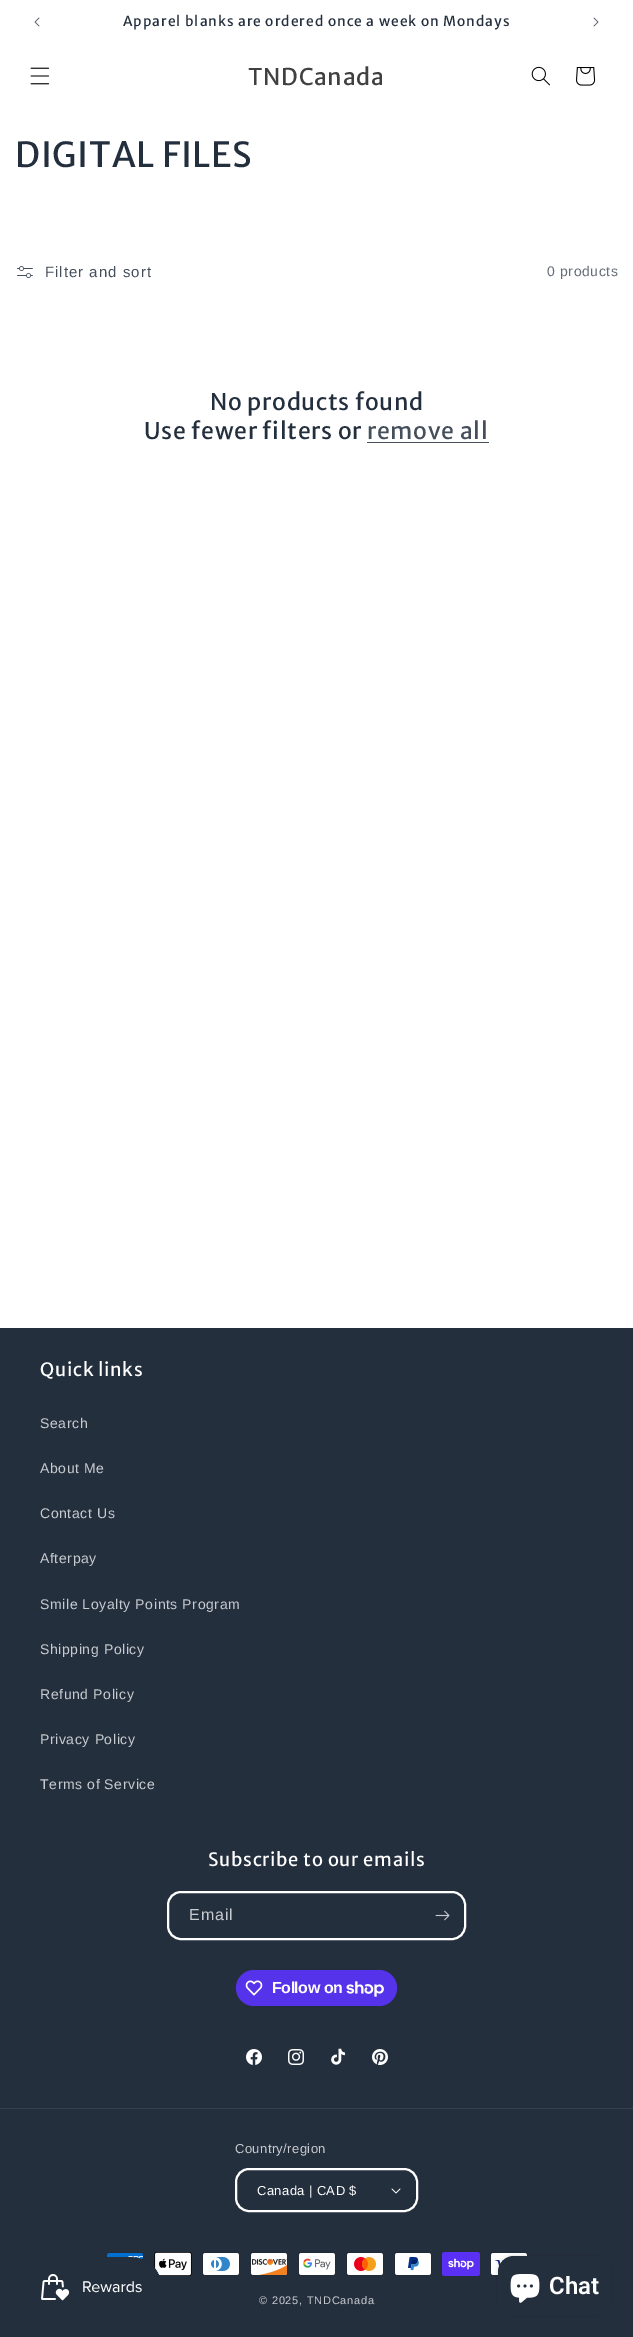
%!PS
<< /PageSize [633 2337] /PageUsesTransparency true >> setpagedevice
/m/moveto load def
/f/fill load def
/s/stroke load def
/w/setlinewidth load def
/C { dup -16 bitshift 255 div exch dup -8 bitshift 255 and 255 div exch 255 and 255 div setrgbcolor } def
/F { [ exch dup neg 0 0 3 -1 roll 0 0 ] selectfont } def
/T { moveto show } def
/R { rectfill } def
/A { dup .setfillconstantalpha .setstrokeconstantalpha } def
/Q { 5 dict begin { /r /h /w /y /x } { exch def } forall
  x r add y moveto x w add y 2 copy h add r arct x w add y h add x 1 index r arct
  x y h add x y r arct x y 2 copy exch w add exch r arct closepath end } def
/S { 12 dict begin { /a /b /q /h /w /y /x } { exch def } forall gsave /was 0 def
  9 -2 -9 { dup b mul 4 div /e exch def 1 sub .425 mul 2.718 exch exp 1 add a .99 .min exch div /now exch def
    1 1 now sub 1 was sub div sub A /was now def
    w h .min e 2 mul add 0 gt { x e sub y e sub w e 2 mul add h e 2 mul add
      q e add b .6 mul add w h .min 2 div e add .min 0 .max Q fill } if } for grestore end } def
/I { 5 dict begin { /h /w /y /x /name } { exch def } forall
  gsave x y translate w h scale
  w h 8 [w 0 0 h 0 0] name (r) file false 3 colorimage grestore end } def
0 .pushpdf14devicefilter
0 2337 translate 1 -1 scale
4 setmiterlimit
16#FFFFFF C
0 0 633 2337 R
(1.rgb) 34 17 6 10 I
/MerriweatherSans-Regular 13.8 F
16#242F3E C
123 26 m 1 0 (Apparel blanks are ordered once a week on Mondays) ashow
(2.rgb) 593 17 6 10 I
(3.rgb) 30 67 20 18 I
/MerriweatherSans-Regular 23 F
16#404040 C
248 85 m .7 0 (TNDCanada) ashow
(4.rgb) 531 66 19 20 I
(5.rgb) 576 67 20 19 I
/MerriweatherSans-Regular 34.5 F
16#242F3E C
15 167 m .7 0 (DIGITAL FILES) ashow
(6.rgb) 17 266 16 12 I
/Arimo-Regular 15 F
16#454E5B C
45 277 m 1 0 (Filter and sort) ashow
/Arimo-Regular 14 F
16#666D78 C
547 276 m .6 0 (0 products) ashow
/MerriweatherSans-Regular 23 F
16#242F3E C
210 410 m .7 0 (No products found) ashow
144 439 m .7 0 (Use fewer filters or) ashow
16#454E5B C
367 439 m .7 0 (remove all) ashow
367 442 122 1 R
16#242F3E C
0 1328 633 1009 R
/MerriweatherSans-Regular 18.4 F
16#FFFFFF C
40 1376 m .7 0 (Quick links) ashow
/Arimo-Regular 14 F
16#C8CBCF C
40 1428 m .6 0 (Search) ashow
40 1473 m .6 0 (About Me) ashow
40 1518 m .6 0 (Contact Us) ashow
40 1563 m .6 0 (Afterpay) ashow
40 1609 m .6 0 (Smile Loyalty Points Program) ashow
40 1654 m .6 0 (Shipping Policy) ashow
40 1699 m .6 0 (Refund Policy) ashow
40 1744 m .6 0 (Privacy Policy) ashow
40 1789 m .6 0 (Terms of Service) ashow
/MerriweatherSans-Regular 18.4 F
16#FFFFFF C
208 1866 m .7 0 (Subscribe to our emails) ashow
2 w
168 1892 297 47 13 Q s
/Arimo-Regular 16 F
16#C8CBCF C
189 1920 m 1 0 (Email) ashow
(7.rgb) 435 1910 15 11 I
16#5433EB C
236 1970 161 36 18 Q f
(8.rgb) 245 1980 18 16 I
/LiberationSans-Bold 16 F
16#FFFFFF C
272 1993 m -.5 0 (Follow on) ashow
(9.rgb) 346 1981 38 16 I
(10.rgb) 246 2049 16 16 I
(11.rgb) 288 2049 16 16 I
(12.rgb) 331 2048 15 17 I
(13.rgb) 372 2049 16 16 I
16#36404D C
0 2108 633 1 R
/Arimo-Regular 13 F
16#C8CBCF C
235 2153 m .4 0 (Country/region) ashow
(14.rgb) 391 2188 10 6 I
16#FFFFFF C
236 2169 181 42 13 Q s
257 2195 m .4 0 (Canada | CAD $) ashow
(15.rgb) 106 2252 38 8 I
(16.rgb) 154 2252 38 24 I
(17.rgb) 202 2252 38 24 I
(18.rgb) 250 2252 38 24 I
(19.rgb) 298 2252 38 24 I
(20.rgb) 346 2252 38 24 I
(21.rgb) 394 2252 38 24 I
(22.rgb) 442 2252 38 24 I
(23.rgb) 490 2252 38 24 I
/Arimo-Regular 11 F
16#C8CBCF C
259 2304 m .75 0 (© 2025, TNDCanada) ashow
(24.rgb) 41 2257 119 44 I
16#000000 C
498 2256 113 60 16 2.5 .15 S
16#242F3E C
498 2256 113 60 16 Q f
(25.rgb) 510 2274 30 29 I
/Roboto-SemiBold 24 F
16#FFFFFF C
(Chat) 549 2294 T
.poppdf14devicefilter showpage
